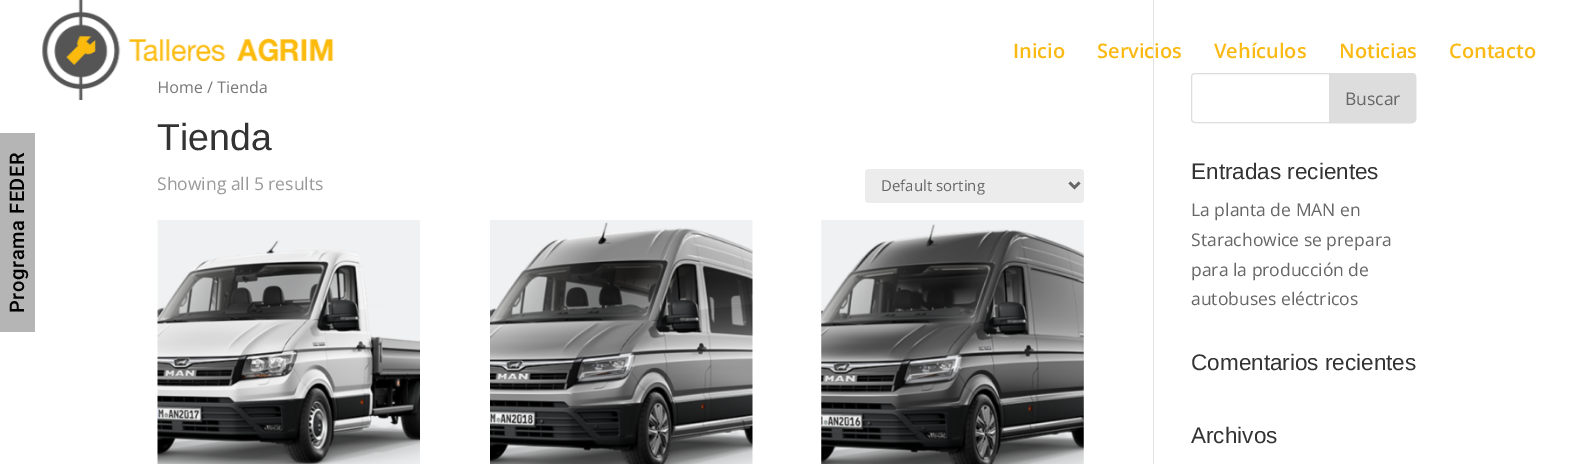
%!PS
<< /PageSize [1573 464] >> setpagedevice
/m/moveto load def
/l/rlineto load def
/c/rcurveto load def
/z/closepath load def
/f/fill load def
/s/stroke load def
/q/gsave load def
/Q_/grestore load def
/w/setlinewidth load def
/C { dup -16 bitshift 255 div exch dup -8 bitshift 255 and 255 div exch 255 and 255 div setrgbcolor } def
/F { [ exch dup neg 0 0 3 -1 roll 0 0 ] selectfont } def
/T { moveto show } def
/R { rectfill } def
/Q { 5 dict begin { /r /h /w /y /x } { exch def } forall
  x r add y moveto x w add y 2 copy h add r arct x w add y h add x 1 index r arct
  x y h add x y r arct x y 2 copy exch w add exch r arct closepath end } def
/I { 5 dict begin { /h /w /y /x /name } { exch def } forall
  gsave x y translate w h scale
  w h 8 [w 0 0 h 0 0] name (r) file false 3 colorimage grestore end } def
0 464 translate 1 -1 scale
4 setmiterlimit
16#FFFFFF C
0 0 1573 464 R
16#B5B5B5 C
0 133 35 199 R
/Roboto-Medium 20 F
16#000000 C
q 24 313 translate -90 rotate 0 0 m .6 0 (Programa FEDER) ashow Q_
/OpenSans-Regular 16 F
16#767676 C
(Home / Tienda) 157 93 T
(1.rgb) 42 0 292 100 I
/OpenSans-SemiBold 20 F
16#FBB914 C
(Inicio) 1013 58 T
16#E2E2E2 C
1153 0 1 464 R
16#FBB914 C
(Servicios) 1097 58 T
(Vehículos) 1214 58 T
(Noticias) 1339 58 T
(Contacto) 1449 58 T
/LiberationSans-Regular 37.5 F
16#333333 C
(Tienda) 157 150 T
/OpenSans-Regular 17.5 F
16#999999 C
(Showing all 5 results) 157 190 T
16#ECECEC C
865 169 219 34 4 Q f
16#666666 C
2.5 w
1069.5 182.5 m 5 5 l 5 -5 l s
/OpenSans-Regular 15 F
(Default sorting) 881 191 T
(2.rgb) 157 220 263 244 I
(3.rgb) 490 220 263 244 I
(4.rgb) 821 220 263 244 I
16#DDDDDD C
1 w
1191.5 73.5 224 49 3.5 Q s
1329.5 73.5 m 82.5 0 l 2 0 3.5 1.5 3.5 3.5 c 0 42 l 0 2 -1.5 3.5 -3.5 3.5 c -82.5 0 l z q f Q_
s
/OpenSans-Regular 17.5 F
16#666666 C
(Buscar) 1345 105 T
/LiberationSans-Regular 22.5 F
16#333333 C
(Entradas recientes) 1191 179 T
/OpenSans-Regular 17.5 F
16#666666 C
(La planta de MAN en) 1191 216 T
(Starachowice se prepara) 1191 246 T
(para la producción de) 1191 276 T
(autobuses eléctricos) 1191 305 T
/LiberationSans-Regular 22.5 F
16#333333 C
(Comentarios recientes) 1191 370 T
(Archivos) 1191 443 T
showpage
